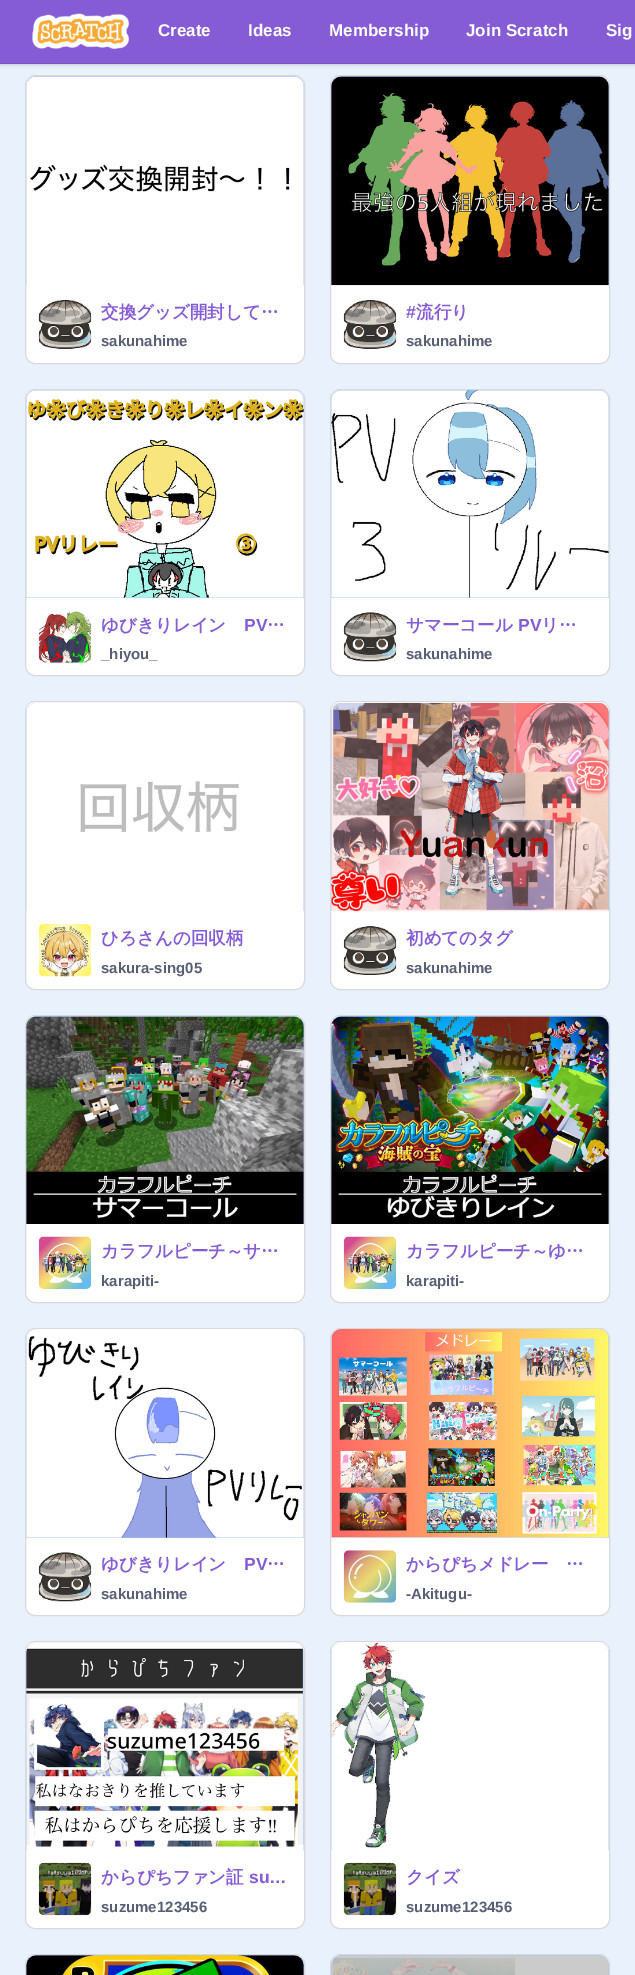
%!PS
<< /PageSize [635 1975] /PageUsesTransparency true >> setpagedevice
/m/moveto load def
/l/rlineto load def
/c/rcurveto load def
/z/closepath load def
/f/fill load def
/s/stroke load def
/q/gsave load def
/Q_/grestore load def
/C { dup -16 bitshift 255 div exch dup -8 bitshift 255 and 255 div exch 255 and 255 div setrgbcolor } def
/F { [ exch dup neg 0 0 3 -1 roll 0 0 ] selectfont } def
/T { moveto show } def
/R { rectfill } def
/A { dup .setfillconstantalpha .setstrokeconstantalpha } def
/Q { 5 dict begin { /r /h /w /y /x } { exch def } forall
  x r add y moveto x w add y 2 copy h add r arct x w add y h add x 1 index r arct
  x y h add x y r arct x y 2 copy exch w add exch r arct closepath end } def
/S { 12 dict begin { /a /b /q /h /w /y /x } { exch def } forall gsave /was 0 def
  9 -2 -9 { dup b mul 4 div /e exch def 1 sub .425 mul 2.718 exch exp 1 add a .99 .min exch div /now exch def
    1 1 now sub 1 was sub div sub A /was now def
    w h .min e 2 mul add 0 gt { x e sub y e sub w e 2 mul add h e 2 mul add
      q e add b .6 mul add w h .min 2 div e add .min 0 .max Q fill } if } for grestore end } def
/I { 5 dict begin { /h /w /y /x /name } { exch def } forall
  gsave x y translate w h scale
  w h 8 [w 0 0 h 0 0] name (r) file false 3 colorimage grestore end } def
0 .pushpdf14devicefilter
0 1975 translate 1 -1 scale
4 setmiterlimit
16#E9F1FC C
0 0 635 1975 R
16#000000 C
0 0 635 64 0 2 .25 S
16#855CD6 C
0 0 635 63 R
16#7853C1 C
0 63 635 1 R
(1.rgb) 32 13 97 36 I
/LiberationSans-Bold 17 F
16#FFFFFF C
(Create) 158 36 T
(Ideas) 248 36 T
(Membership) 329 36 T
(Join Scratch) 466 36 T
(Sig) 606 36 T
25.5 75.5 279 288 9.5 Q q f Q_
16#D9D9D9 C
s
16#A0C6FC C
36 76 m 258 0 l 5.5 0 10 4.5 10 10 c 0 199 l -278 0 l 0 -199 l 0 -5.5 4.5 -10 10 -10 c z f
(2.rgb) 26 76 278 209 I
(3.rgb) 38 298 54 51 I
/WenQuanYiZenHei-Bold 17.5 F
16#855CD6 C
(交換グッズ開封して…) 101 318 T
/LiberationSans-Bold 15 F
16#575E75 C
(sakunahime) 101 346 T
16#FFFFFF C
330.5 75.5 279 288 9.5 Q q f Q_
16#D9D9D9 C
s
16#A0C6FC C
341 76 m 258 0 l 5.5 0 10 4.5 10 10 c 0 199 l -278 0 l 0 -199 l 0 -5.5 4.5 -10 10 -10 c z f
(4.rgb) 331 76 278 210 I
(5.rgb) 343 298 54 51 I
/LiberationSans-Bold 17.5 F
16#855CD6 C
(#) 406 318 T
/WenQuanYiZenHei-Bold 17.5 F
(流行り) 416 318 T
/LiberationSans-Bold 15 F
16#575E75 C
(sakunahime) 406 346 T
16#FFFFFF C
25.5 389.5 279 286 9.5 Q q f Q_
16#D9D9D9 C
s
16#A0C6FC C
36 390 m 258 0 l 5.5 0 10 4.5 10 10 c 0 198 l -278 0 l 0 -198 l 0 -5.5 4.5 -10 10 -10 c z f
(6.rgb) 26 390 278 208 I
(7.rgb) 38 611 54 52 I
/WenQuanYiZenHei-Bold 17.5 F
16#855CD6 C
(ゆびきりレイン) 101 631 T
/LiberationSans-Bold 17.5 F
(PV) 244 631 T
/WenQuanYiZenHei-Bold 17.5 F
(…) 267 631 T
/LiberationSans-Bold 15 F
16#575E75 C
(_hiyou_) 101 659 T
16#FFFFFF C
330.5 389.5 279 286 9.5 Q q f Q_
16#D9D9D9 C
s
16#A0C6FC C
341 390 m 258 0 l 5.5 0 10 4.5 10 10 c 0 198 l -278 0 l 0 -198 l 0 -5.5 4.5 -10 10 -10 c z f
(8.rgb) 331 390 278 208 I
(9.rgb) 343 611 54 51 I
/WenQuanYiZenHei-Bold 17.5 F
16#855CD6 C
(サマーコール) 406 631 T
/LiberationSans-Bold 17.5 F
(PV) 518 631 T
/WenQuanYiZenHei-Bold 17.5 F
(リ…) 541 631 T
/LiberationSans-Bold 15 F
16#575E75 C
(sakunahime) 406 659 T
16#FFFFFF C
25.5 701.5 279 288 9.5 Q q f Q_
16#D9D9D9 C
s
16#A0C6FC C
36 703 m 258 0 l 5.5 0 10 4.5 10 10 c 0 198 l -278 0 l 0 -198 l 0 -5.5 4.5 -10 10 -10 c z f
(10.rgb) 26 703 278 208 I
(11.rgb) 38 924 54 53 I
/WenQuanYiZenHei-Bold 17.5 F
16#855CD6 C
(ひろさんの回収柄) 101 944 T
/LiberationSans-Bold 15 F
16#575E75 C
(sakura-sing05) 101 973 T
16#FFFFFF C
330.5 701.5 279 288 9.5 Q q f Q_
16#D9D9D9 C
s
16#A0C6FC C
341 703 m 258 0 l 5.5 0 10 4.5 10 10 c 0 198 l -278 0 l 0 -198 l 0 -5.5 4.5 -10 10 -10 c z f
(12.rgb) 331 702 278 210 I
(13.rgb) 343 925 54 51 I
/WenQuanYiZenHei-Bold 17.5 F
16#855CD6 C
(初めてのタグ) 406 944 T
/LiberationSans-Bold 15 F
16#575E75 C
(sakunahime) 406 973 T
16#FFFFFF C
25.5 1015.5 279 287 9.5 Q q f Q_
16#D9D9D9 C
s
16#A0C6FC C
36 1016 m 258 0 l 5.5 0 10 4.5 10 10 c 0 198 l -278 0 l 0 -198 l 0 -5.5 4.5 -10 10 -10 c z f
(14.rgb) 26 1016 278 208 I
(15.rgb) 38 1236 54 53 I
/WenQuanYiZenHei-Bold 17.5 F
16#855CD6 C
(カラフルピーチ～サ…) 101 1257 T
/LiberationSans-Bold 15 F
16#575E75 C
(karapiti-) 101 1286 T
16#FFFFFF C
330.5 1015.5 279 287 9.5 Q q f Q_
16#D9D9D9 C
s
16#A0C6FC C
341 1016 m 258 0 l 5.5 0 10 4.5 10 10 c 0 198 l -278 0 l 0 -198 l 0 -5.5 4.5 -10 10 -10 c z f
(16.rgb) 331 1016 278 208 I
(17.rgb) 343 1236 54 53 I
/WenQuanYiZenHei-Bold 17.5 F
16#855CD6 C
(カラフルピーチ～ゆ…) 406 1257 T
/LiberationSans-Bold 15 F
16#575E75 C
(karapiti-) 406 1286 T
16#FFFFFF C
25.5 1328.5 279 287 9.5 Q q f Q_
16#D9D9D9 C
s
16#A0C6FC C
36 1329 m 258 0 l 5.5 0 10 4.5 10 10 c 0 199 l -278 0 l 0 -199 l 0 -5.5 4.5 -10 10 -10 c z f
(18.rgb) 26 1329 278 209 I
(19.rgb) 38 1551 54 51 I
/WenQuanYiZenHei-Bold 17.5 F
16#855CD6 C
(ゆびきりレイン) 101 1570 T
/LiberationSans-Bold 17.5 F
(PV) 244 1570 T
/WenQuanYiZenHei-Bold 17.5 F
(…) 267 1570 T
/LiberationSans-Bold 15 F
16#575E75 C
(sakunahime) 101 1599 T
16#FFFFFF C
330.5 1328.5 279 287 9.5 Q q f Q_
16#D9D9D9 C
s
16#A0C6FC C
341 1329 m 258 0 l 5.5 0 10 4.5 10 10 c 0 199 l -278 0 l 0 -199 l 0 -5.5 4.5 -10 10 -10 c z f
(20.rgb) 331 1329 278 209 I
(21.rgb) 343 1550 54 53 I
/WenQuanYiZenHei-Bold 17.5 F
16#855CD6 C
(からぴちメドレー　…) 406 1570 T
/LiberationSans-Bold 15 F
16#575E75 C
(-Akitugu-) 406 1599 T
16#FFFFFF C
25.5 1641.5 279 287 9.5 Q q f Q_
16#D9D9D9 C
s
16#A0C6FC C
36 1643 m 258 0 l 5.5 0 10 4.5 10 10 c 0 197 l -278 0 l 0 -197 l 0 -5.5 4.5 -10 10 -10 c z f
(22.rgb) 26 1643 278 207 I
(23.rgb) 38 1862 54 54 I
/WenQuanYiZenHei-Bold 17.5 F
16#855CD6 C
(からぴちファン証) 101 1883 T
/LiberationSans-Bold 17.5 F
(su…) 249 1883 T
/LiberationSans-Bold 15 F
16#575E75 C
(suzume123456) 101 1912 T
16#FFFFFF C
330.5 1641.5 279 287 9.5 Q q f Q_
16#D9D9D9 C
s
16#A0C6FC C
341 1643 m 258 0 l 5.5 0 10 4.5 10 10 c 0 197 l -278 0 l 0 -197 l 0 -5.5 4.5 -10 10 -10 c z f
(24.rgb) 331 1642 278 208 I
(25.rgb) 343 1862 54 54 I
/WenQuanYiZenHei-Bold 17.5 F
16#855CD6 C
(クイズ) 406 1883 T
/LiberationSans-Bold 15 F
16#575E75 C
(suzume123456) 406 1912 T
16#FFFFFF C
25.5 1954.5 279 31 9.5 Q q f Q_
16#D9D9D9 C
s
16#A0C6FC C
36 1955 m 258 0 l 5.5 0 10 4.5 10 10 c 0 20 l -278 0 l 0 -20 l 0 -5.5 4.5 -10 10 -10 c z f
(26.rgb) 26 1955 278 20 I
16#FFFFFF C
330.5 1954.5 279 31 9.5 Q q f Q_
16#D9D9D9 C
s
16#A0C6FC C
341 1955 m 258 0 l 5.5 0 10 4.5 10 10 c 0 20 l -278 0 l 0 -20 l 0 -5.5 4.5 -10 10 -10 c z f
(27.rgb) 331 1955 278 20 I
.poppdf14devicefilter showpage
